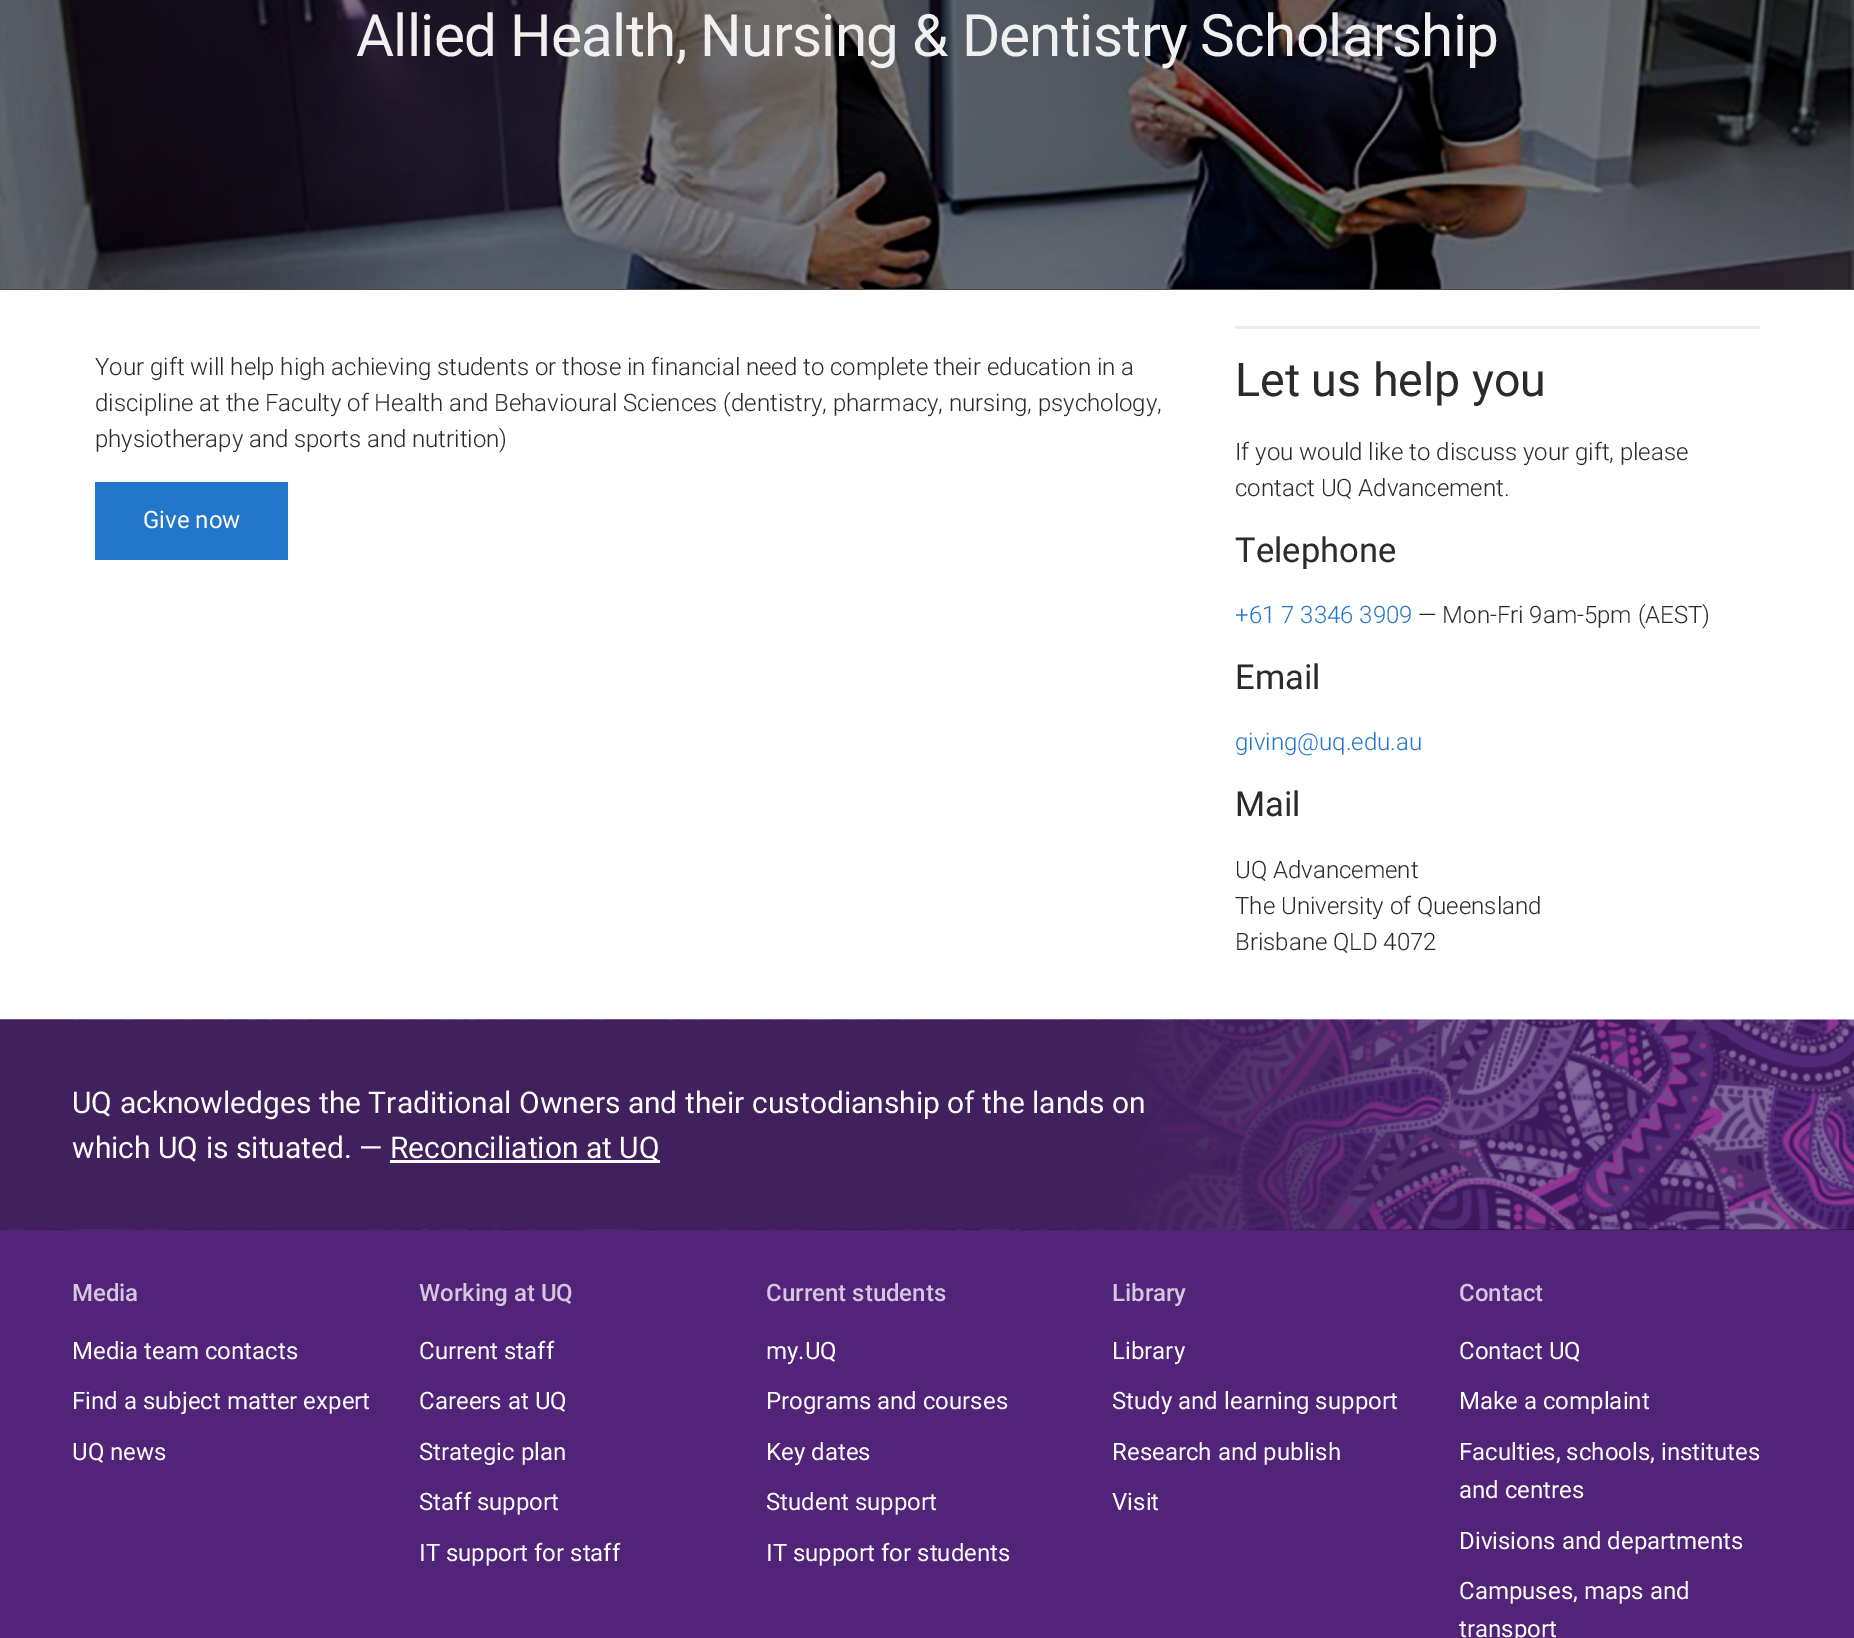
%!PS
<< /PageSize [1854 1638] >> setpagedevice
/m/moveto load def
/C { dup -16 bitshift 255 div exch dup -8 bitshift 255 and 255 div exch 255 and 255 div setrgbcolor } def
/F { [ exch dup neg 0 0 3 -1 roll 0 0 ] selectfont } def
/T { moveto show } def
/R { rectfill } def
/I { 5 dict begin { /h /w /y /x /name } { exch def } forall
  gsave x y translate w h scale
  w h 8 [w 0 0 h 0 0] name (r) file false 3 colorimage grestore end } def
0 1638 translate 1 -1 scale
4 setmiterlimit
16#FFFFFF C
0 0 1854 1638 R
16#494949 C
0 289 1854 1 R
(1.rgb) 0 0 1854 289 I
/Roboto-Regular 58.5 F
16#F0F0F0 C
356 56 m -.75 0 (Allied Health, Nursing & Dentistry Scholarship) ashow
/Roboto-Light 24 F
16#2B2B2B C
(Your gift will help high achieving students or those in financial need to complete their education in a) 95 375 T
(discipline at the Faculty of Health and Behavioural Sciences \(dentistry, pharmacy, nursing, psychology,) 95 411 T
(physiotherapy and sports and nutrition\)) 95 447 T
16#2377CB C
95 482 193 78 R
/Roboto-Regular 24 F
16#FFFFFF C
(Give now) 143 528 T
16#EDEDED C
1235 326 525 3 R
/Roboto-Regular 46.5 F
16#2B2B2B C
(Let us help you) 1235 396 T
/Roboto-Light 24 F
(If you would like to discuss your gift, please) 1235 460 T
(contact UQ Advancement.) 1235 496 T
/Roboto-Regular 34.5 F
(Telephone) 1235 562 T
/Roboto-Light 24 F
16#2377CB C
(+61 7 3346 3909) 1235 623 T
16#2B2B2B C
(— Mon-Fri 9am-5pm \(AEST\)) 1418 623 T
/Roboto-Regular 34.5 F
(Email) 1235 689 T
/Roboto-Light 24 F
16#2377CB C
(giving@uq.edu.au) 1235 750 T
/Roboto-Regular 34.5 F
16#2B2B2B C
(Mail) 1235 816 T
/Roboto-Light 24 F
(UQ Advancement) 1235 878 T
(The University of Queensland) 1235 914 T
(Brisbane QLD 4072) 1235 950 T
16#51247A C
0 1230 1854 408 R
16#19151C C
0 1229 1854 1 R
(2.rgb) 0 1019 1854 211 I
/Roboto-Regular 30 F
16#FFFFFF C
(UQ acknowledges the Traditional Owners and their custodianship of the lands on) 72 1113 T
(which UQ is situated. —) 72 1158 T
390 1160 270 3 R
(Reconciliation at UQ) 390 1158 T
/Roboto-Medium 24 F
16#D4C8DE C
(Media) 72 1301 T
/Roboto-Regular 24 F
16#FFFFFF C
(Media team contacts) 72 1359 T
(Find a subject matter expert) 72 1409 T
(UQ news) 72 1460 T
/Roboto-Medium 24 F
16#D4C8DE C
(Working at UQ) 419 1301 T
/Roboto-Regular 24 F
16#FFFFFF C
(Current staff) 419 1359 T
(Careers at UQ) 419 1409 T
(Strategic plan) 419 1460 T
(Staff support) 419 1510 T
(IT support for staff) 419 1561 T
/Roboto-Medium 24 F
16#D4C8DE C
(Current students) 766 1301 T
/Roboto-Regular 24 F
16#FFFFFF C
(my.UQ) 766 1359 T
(Programs and courses) 766 1409 T
(Key dates) 766 1460 T
(Student support) 766 1510 T
(IT support for students) 766 1561 T
/Roboto-Medium 24 F
16#D4C8DE C
(Library) 1112 1301 T
/Roboto-Regular 24 F
16#FFFFFF C
(Library) 1112 1359 T
(Study and learning support) 1112 1409 T
(Research and publish) 1112 1460 T
(Visit) 1112 1510 T
/Roboto-Medium 24 F
16#D4C8DE C
(Contact) 1459 1301 T
/Roboto-Regular 24 F
16#FFFFFF C
(Contact UQ) 1459 1359 T
(Make a complaint) 1459 1409 T
(Faculties, schools, institutes) 1459 1460 T
(and centres) 1459 1498 T
(Divisions and departments) 1459 1549 T
(Campuses, maps and) 1459 1599 T
(transport) 1459 1637 T
showpage
